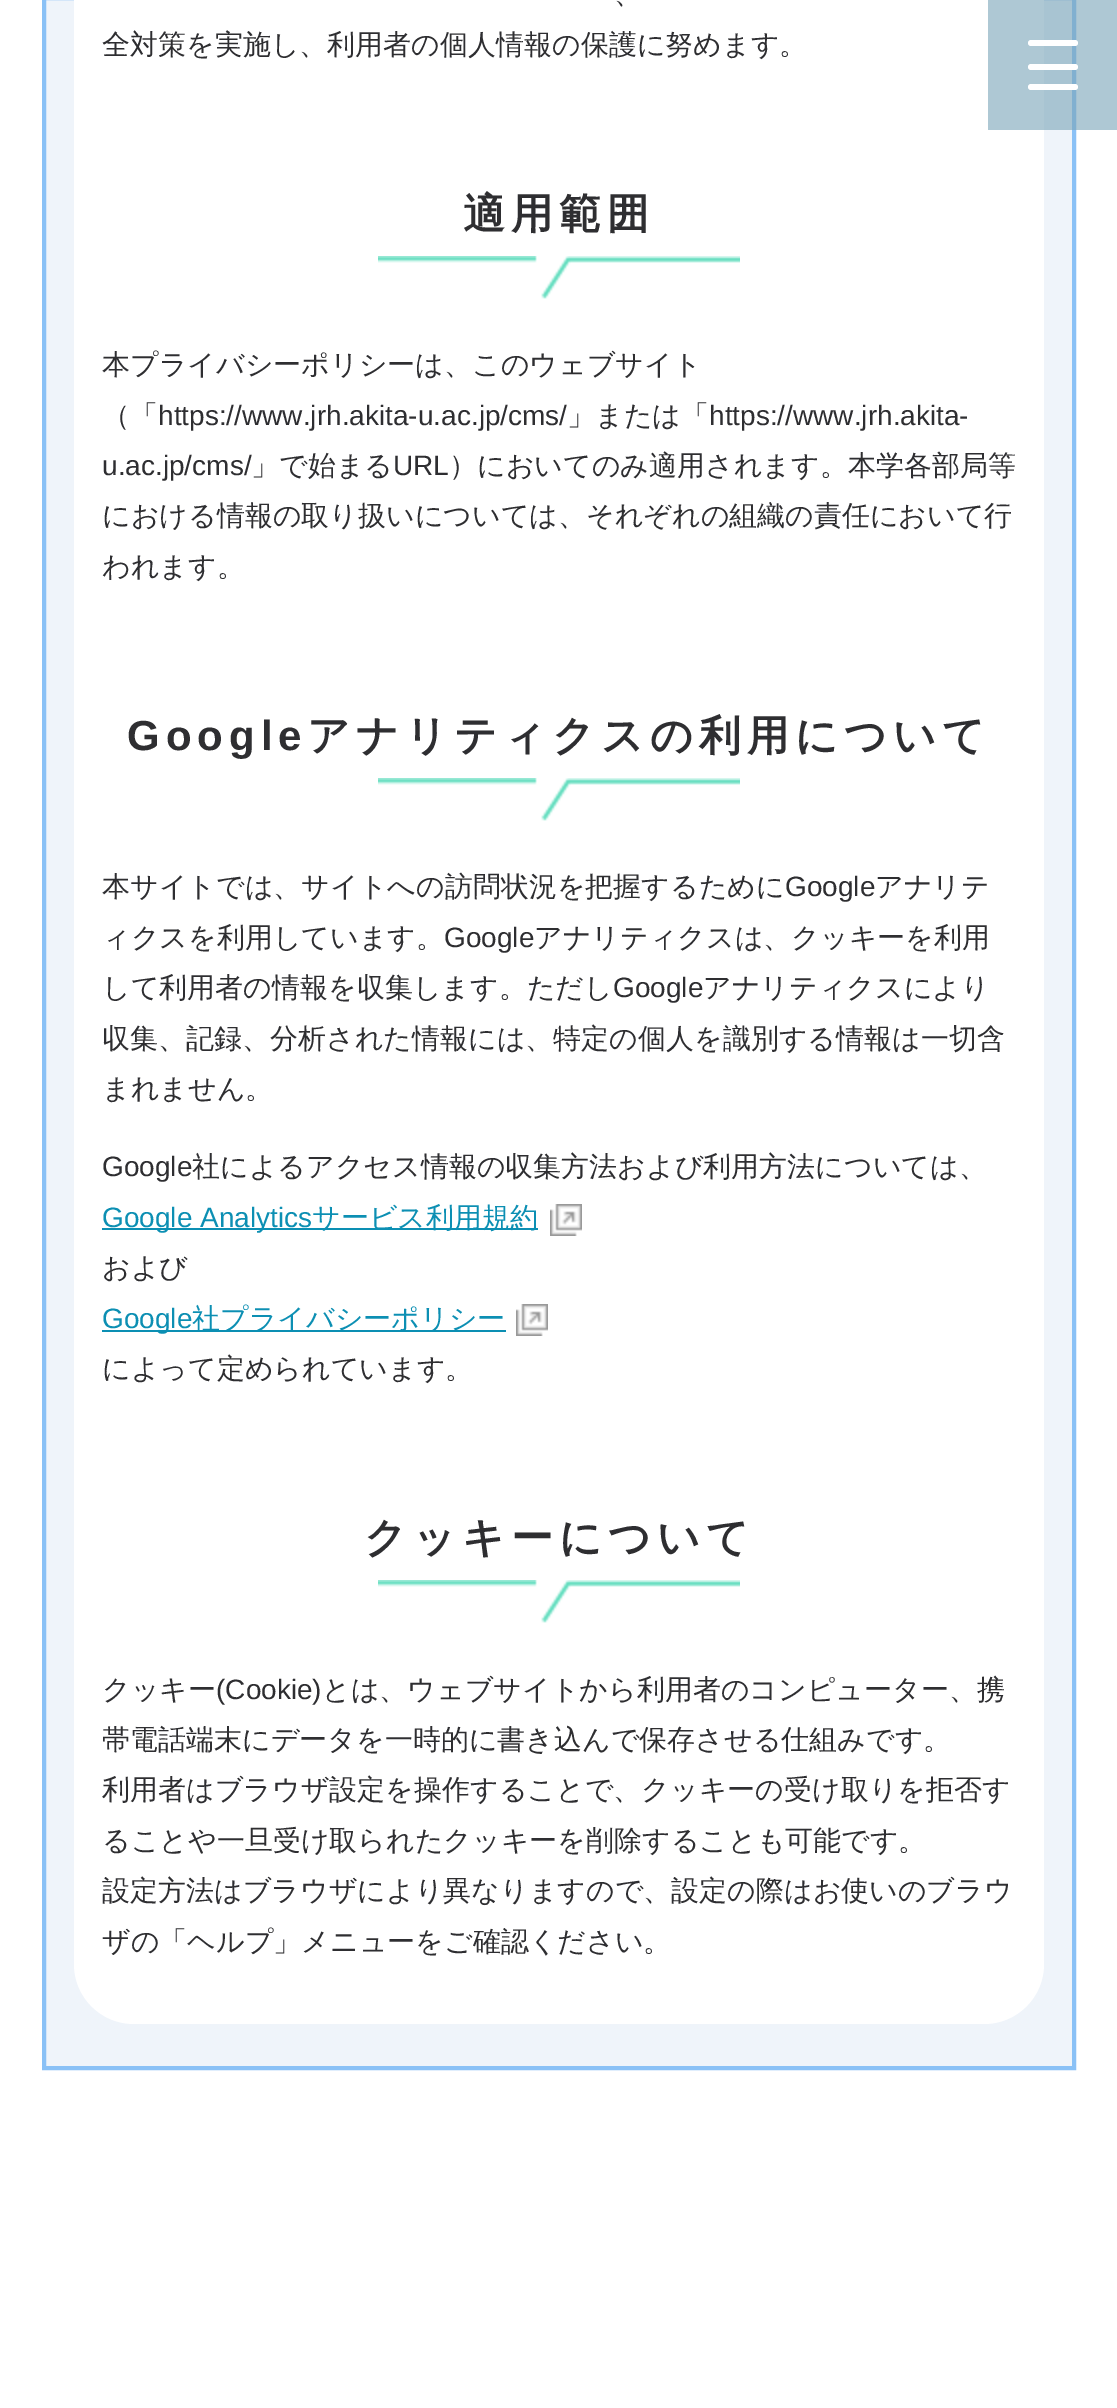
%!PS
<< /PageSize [1117 2408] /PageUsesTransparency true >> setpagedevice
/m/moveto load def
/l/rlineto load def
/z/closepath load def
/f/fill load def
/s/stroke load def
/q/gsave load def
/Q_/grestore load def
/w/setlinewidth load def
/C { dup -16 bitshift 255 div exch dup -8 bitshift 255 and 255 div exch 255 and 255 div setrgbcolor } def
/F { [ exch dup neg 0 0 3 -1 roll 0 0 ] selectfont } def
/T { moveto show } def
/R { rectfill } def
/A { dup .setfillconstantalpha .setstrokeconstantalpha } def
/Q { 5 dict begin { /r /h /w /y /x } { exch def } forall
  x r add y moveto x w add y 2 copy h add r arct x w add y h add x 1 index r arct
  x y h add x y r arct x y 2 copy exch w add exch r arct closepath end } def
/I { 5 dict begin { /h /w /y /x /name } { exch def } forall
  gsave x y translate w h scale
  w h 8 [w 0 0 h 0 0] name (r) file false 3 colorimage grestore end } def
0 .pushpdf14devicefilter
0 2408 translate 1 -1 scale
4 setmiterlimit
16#FFFFFF C
0 0 1117 2408 R
16#EFF4FA C
44 -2 m 1030 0 l 0 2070 l -1030 0 l z q f Q_
16#8AC1F6 C
4 w
s
16#FFFFFF C
74 -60 970 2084 60 Q f
/WenQuanYiZenHei-Medium 28 F
16#2E2E31 C
(、) 614 3 T
(全対策を実施し、利用者の個人情報の保護に努めます。) 102 54 T
/WenQuanYiZenHei-Bold 42 F
463 228 m 6 0 (適用範囲) ashow
(1.rgb) 378 256 362 43 I
/WenQuanYiZenHei-Medium 28 F
(本プライバシーポリシーは、このウェブサイト) 102 374 T
(（「) 102 425 T
/LiberationSans-Regular 28 F
(https://www.jrh.akita-u.ac.jp/cms/) 158 425 T
/WenQuanYiZenHei-Medium 28 F
(」または「) 567 425 T
/LiberationSans-Regular 28 F
(https://www.jrh.akita-) 709 425 T
(u.ac.jp/cms/) 102 475 T
/WenQuanYiZenHei-Medium 28 F
(」で始まる) 251 475 T
/LiberationSans-Regular 28 F
(URL) 393 475 T
/WenQuanYiZenHei-Medium 28 F
(）においてのみ適用されます。本学各部局等) 449 475 T
(における情報の取り扱いについては、それぞれの組織の責任において行) 102 525 T
(われます。) 102 576 T
/LiberationSans-Bold 42 F
127 750 m 6 0 (Google) ashow
/WenQuanYiZenHei-Bold 42 F
307 750 m 6 0 (アナリティクスの利用について) ashow
(1.rgb) 378 778 362 43 I
/WenQuanYiZenHei-Medium 28 F
(本サイトでは、サイトへの訪問状況を把握するために) 102 896 T
/LiberationSans-Regular 28 F
(Google) 785 896 T
/WenQuanYiZenHei-Medium 28 F
(アナリテ) 875 896 T
(ィクスを利用しています。) 102 947 T
/LiberationSans-Regular 28 F
(Google) 444 947 T
/WenQuanYiZenHei-Medium 28 F
(アナリティクスは、クッキーを利用) 534 947 T
(して利用者の情報を収集します。ただし) 102 997 T
/LiberationSans-Regular 28 F
(Google) 613 997 T
/WenQuanYiZenHei-Medium 28 F
(アナリティクスにより) 703 997 T
(収集、記録、分析された情報には、特定の個人を識別する情報は一切含) 102 1048 T
(まれません。) 102 1098 T
/LiberationSans-Regular 28 F
(Google) 102 1176 T
/WenQuanYiZenHei-Medium 28 F
(社によるアクセス情報の収集方法および利用方法については、) 192 1176 T
16#0C8FB3 C
102 1228 436 2 R
/LiberationSans-Regular 28 F
(Google Analytics) 102 1227 T
/WenQuanYiZenHei-Medium 28 F
(サービス利用規約) 312 1227 T
(2.rgb) 550 1204 32 32 I
16#2E2E31 C
(および) 102 1277 T
16#0C8FB3 C
102 1330 404 2 R
/LiberationSans-Regular 28 F
(Google) 102 1328 T
/WenQuanYiZenHei-Medium 28 F
(社プライバシーポリシー) 192 1328 T
(2.rgb) 516 1304 32 32 I
16#2E2E31 C
(によって定められています。) 102 1378 T
/WenQuanYiZenHei-Bold 42 F
364 1552 m 6 0 (クッキーについて) ashow
(1.rgb) 378 1580 362 43 I
/WenQuanYiZenHei-Medium 28 F
(クッキー) 102 1699 T
/LiberationSans-Regular 28 F
(\(Cookie\)) 216 1699 T
/WenQuanYiZenHei-Medium 28 F
(とは、ウェブサイトから利用者のコンピューター、携) 322 1699 T
(帯電話端末にデータを一時的に書き込んで保存させる仕組みです。) 102 1749 T
(利用者はブラウザ設定を操作することで、クッキーの受け取りを拒否す) 102 1799 T
(ることや一旦受け取られたクッキーを削除することも可能です。) 102 1850 T
(設定方法はブラウザにより異なりますので、設定の際はお使いのブラウ) 102 1900 T
(ザの「ヘルプ」メニューをご確認ください。) 102 1951 T
0.61 A
16#7BA5B8 C
988 0 129 130 R
1 A
16#FFFFFF C
1028 40 50 6 3 Q f
1028 64 50 6 3 Q f
1028 84 50 6 3 Q f
.poppdf14devicefilter showpage
